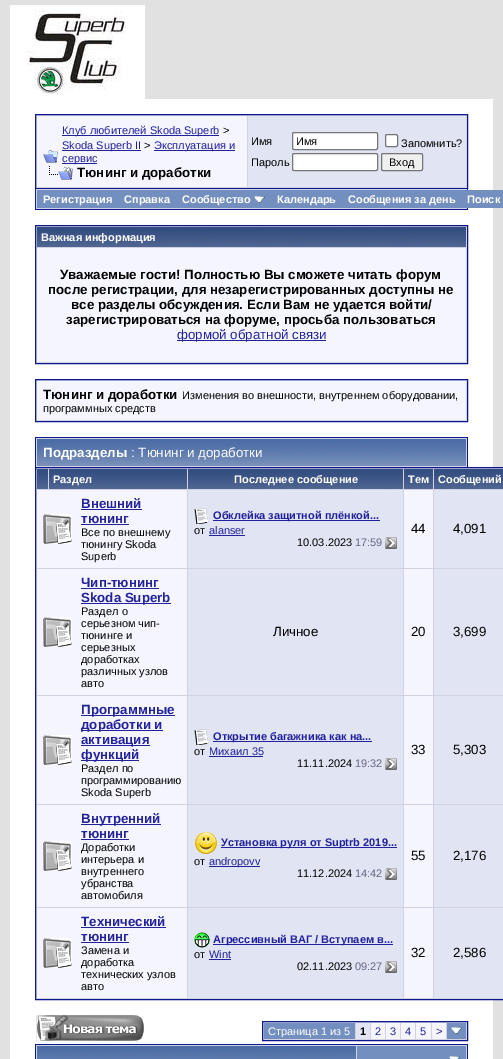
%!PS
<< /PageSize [503 1059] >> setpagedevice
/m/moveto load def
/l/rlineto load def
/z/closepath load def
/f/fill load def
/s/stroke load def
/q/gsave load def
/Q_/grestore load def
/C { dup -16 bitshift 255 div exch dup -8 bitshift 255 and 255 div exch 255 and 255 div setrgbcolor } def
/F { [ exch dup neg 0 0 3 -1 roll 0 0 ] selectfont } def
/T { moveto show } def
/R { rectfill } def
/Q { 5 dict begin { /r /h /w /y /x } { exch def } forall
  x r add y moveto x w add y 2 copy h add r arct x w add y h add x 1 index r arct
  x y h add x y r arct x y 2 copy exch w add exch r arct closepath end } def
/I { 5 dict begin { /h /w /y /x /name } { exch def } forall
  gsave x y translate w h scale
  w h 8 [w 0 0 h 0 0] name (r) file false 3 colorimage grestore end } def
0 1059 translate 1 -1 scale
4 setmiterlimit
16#E1E1E2 C
0 0 503 1059 R
(1.rgb) 10 5 135 94 I
16#FFFFFF C
10 99 483 960 R
16#D1D1E1 C
35.5 114.5 m 432 0 l 0 74 l -432 0 l z q f Q_
16#0B198C C
s
16#F5F5FF C
37 116 210 71 R
(2.rgb) 43 150 15 13 I
16#22229C C
62 135 157 1 R
/LiberationSans-Regular 11 F
(Клуб любителей Skoda Superb) 62 134 T
16#000000 C
(>) 223 134 T
16#22229C C
62 150 79 1 R
(Skoda Superb II) 62 149 T
16#000000 C
(>) 144 149 T
16#22229C C
154 150 81 1 R
(Эксплуатация и) 154 149 T
62 163 35 1 R
(сервис) 62 162 T
(3.rgb) 49 166 24 14 I
/LiberationSans-Bold 13.3 F
16#000000 C
(Тюнинг и доработки) 77 177 T
16#E1E4F2 C
248 116 218 71 R
/LiberationSans-Regular 11 F
16#000000 C
(Имя) 251 145 T
16#FFFFFF C
292.5 132.5 85 17 1.5 Q q f Q_
16#767676 C
s
16#000000 C
(Имя) 296 145 T
16#FFFFFF C
385.5 134.5 12 12 1.5 Q q f Q_
16#767676 C
s
16#000000 C
(Запомнить?) 401 147 T
(Пароль) 251 166 T
16#FFFFFF C
292.5 153.5 85 17 1.5 Q q f Q_
16#767676 C
s
16#EFEFEF C
381.5 153.5 41 17 1.5 Q q f Q_
16#767676 C
s
16#000000 C
(Вход) 389 166 T
16#D1D1E1 C
36 189 431 20 R
16#0B198C C
467 189 1 21 R
35 209 433 1 R
35 189 1 21 R
16#738FBF C
37 190 466 18 R
/LiberationSans-Bold 11 F
16#FFFFFF C
(Регистрация) 43 203 T
(Справка) 124 203 T
(Сообщество) 182 203 T
(4.rgb) 254 196 11 7 I
(Календарь) 277 203 T
(Сообщения за день) 348 203 T
(Поиск) 467 203 T
16#D1D1E1 C
35.5 225.5 m 432 0 l 0 138 l -432 0 l z q f Q_
16#0B198C C
s
(5.rgb) 37 227 429 20 I
16#FFFFFF C
(Важная информация) 41 241 T
16#F5F5FF C
37 248 429 114 R
/LiberationSans-Bold 13.3 F
16#000000 C
(Уважаемые гости! Полностью Вы сможете читать форум) 60 279 T
(после регистрации, для незарегистрированных доступны не) 48 294 T
(все разделы обсуждения. Если Вам не удается войти/) 71 309 T
(зарегистрироваться на форуме, просьба пользоваться) 66 324 T
16#22229C C
177 340 149 1 R
/LiberationSans-Regular 13.3 F
(формой обратной связи) 177 339 T
16#D1D1E1 C
35.5 379.5 m 432 0 l 0 42 l -432 0 l z q f Q_
16#0B198C C
s
16#F5F5FF C
37 381 429 39 R
/LiberationSans-Bold 13.3 F
16#000000 C
(Тюнинг и доработки) 43 399 T
/LiberationSans-Regular 11 F
(Изменения во внешности, внутреннем оборудовании,) 182 399 T
(программных средств) 43 412 T
16#D1D1E1 C
36 438 431 29 R
16#0B198C C
35 437 433 1 R
467 437 1 30 R
35 437 1 30 R
(6.rgb) 37 439 429 27 I
/LiberationSans-Bold 13.3 F
16#FFFFFF C
(Подразделы) 43 457 T
/LiberationSans-Regular 13.3 F
(: Тюнинг и доработки) 131 457 T
16#D1D1E1 C
35.5 467.5 m 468 0 l 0 532 l -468 0 l z q f Q_
16#0B198C C
s
(7.rgb) 37 469 11 20 I
(8.rgb) 49 469 138 20 I
/LiberationSans-Bold 11 F
16#FFFFFF C
(Раздел) 53 483 T
(9.rgb) 188 469 215 20 I
(Последнее сообщение) 234 483 T
(10.rgb) 404 469 29 20 I
(Тем) 408 483 T
(11.rgb) 434 469 69 20 I
(Сообщений) 438 483 T
16#F5F5FF C
37 490 150 78 R
(12.rgb) 43 514 29 30 I
/LiberationSans-Bold 13.3 F
16#22229C C
(Внешний) 81 508 T
81 509 61 1 R
(тюнинг) 81 523 T
81 524 48 1 R
/LiberationSans-Regular 11 F
16#000000 C
(Все по внешнему) 81 536 T
(тюнингу Skoda) 81 548 T
(Superb) 81 560 T
16#E1E4F2 C
188 490 215 78 R
(13.rgb) 194 508 15 16 I
16#22229C C
213 520 167 1 R
/LiberationSans-Bold 11 F
(Обклейка защитной плёнкой...) 213 519 T
/LiberationSans-Regular 11 F
16#000000 C
(от) 194 534 T
16#22229C C
(alanser) 209 534 T
209 535 36 1 R
16#000000 C
(10.03.2023) 297 546 T
16#666686 C
(17:59) 355 546 T
(14.rgb) 385 537 12 12 I
16#F5F5FF C
404 490 29 78 R
/LiberationSans-Regular 13.3 F
16#000000 C
(44) 411 533 T
16#E1E4F2 C
434 490 69 78 R
16#000000 C
(4,091) 453 533 T
16#F5F5FF C
37 569 150 126 R
(12.rgb) 43 617 29 30 I
/LiberationSans-Bold 13.3 F
16#22229C C
(Чип-тюнинг) 81 587 T
81 588 78 1 R
81 603 90 1 R
(Skoda Superb) 81 602 T
/LiberationSans-Regular 11 F
16#000000 C
(Раздел о) 81 615 T
(серьезном чип-) 81 627 T
(тюнинге и) 81 639 T
(серьезных) 81 651 T
(доработках) 81 663 T
(различных узлов) 81 675 T
(авто) 81 687 T
16#E1E4F2 C
188 569 215 126 R
/LiberationSans-Regular 13.3 F
16#000000 C
(Личное) 273 636 T
16#F5F5FF C
404 569 29 126 R
16#000000 C
(20) 411 636 T
16#E1E4F2 C
434 569 69 126 R
16#000000 C
(3,699) 453 636 T
16#F5F5FF C
37 696 150 108 R
(12.rgb) 43 735 29 30 I
16#22229C C
81 715 94 1 R
/LiberationSans-Bold 13.3 F
(Программные) 81 714 T
81 730 82 1 R
(доработки и) 81 729 T
81 745 69 1 R
(активация) 81 744 T
81 760 58 1 R
(функций) 81 759 T
/LiberationSans-Regular 11 F
16#000000 C
(Раздел по) 81 772 T
(программированию) 81 784 T
(Skoda Superb) 81 796 T
16#E1E4F2 C
188 696 215 108 R
(13.rgb) 194 729 15 16 I
16#22229C C
213 741 159 1 R
/LiberationSans-Bold 11 F
(Открытие багажника как на...) 213 740 T
/LiberationSans-Regular 11 F
16#000000 C
(от) 194 755 T
16#22229C C
(Михаил 35) 209 755 T
209 756 54 1 R
16#000000 C
(11.11.2024) 297 767 T
16#666686 C
(19:32) 355 767 T
(14.rgb) 385 758 12 12 I
16#F5F5FF C
404 696 29 108 R
/LiberationSans-Regular 13.3 F
16#000000 C
(33) 411 754 T
16#E1E4F2 C
434 696 69 108 R
16#000000 C
(5,303) 453 754 T
16#F5F5FF C
37 805 150 102 R
(12.rgb) 43 841 29 30 I
16#22229C C
81 824 80 1 R
/LiberationSans-Bold 13.3 F
(Внутренний) 81 823 T
(тюнинг) 81 838 T
81 839 48 1 R
/LiberationSans-Regular 11 F
16#000000 C
(Доработки) 81 851 T
(интерьера и) 81 863 T
(внутреннего) 81 875 T
(убранства) 81 887 T
(автомобиля) 81 899 T
16#E1E4F2 C
188 805 215 102 R
(15.rgb) 195 832 22 22 I
16#22229C C
221 847 176 1 R
/LiberationSans-Bold 11 F
(Установка руля от Suptrb 2019...) 221 846 T
/LiberationSans-Regular 11 F
16#000000 C
(от) 194 865 T
16#22229C C
209 866 51 1 R
(andropovv) 209 865 T
16#000000 C
(11.12.2024) 297 877 T
16#666686 C
(14:42) 355 877 T
(14.rgb) 385 868 12 12 I
16#F5F5FF C
404 805 29 102 R
/LiberationSans-Regular 13.3 F
16#000000 C
(55) 411 860 T
16#E1E4F2 C
434 805 69 102 R
16#000000 C
(2,176) 453 860 T
16#F5F5FF C
37 908 150 90 R
(12.rgb) 43 938 29 30 I
/LiberationSans-Bold 13.3 F
16#22229C C
(Технический) 81 926 T
81 927 85 1 R
(тюнинг) 81 941 T
81 942 48 1 R
/LiberationSans-Regular 11 F
16#000000 C
(Замена и) 81 954 T
(доработка) 81 966 T
(технических узлов) 81 978 T
(авто) 81 990 T
16#E1E4F2 C
188 908 215 90 R
(16.rgb) 194 932 16 16 I
16#22229C C
213 944 180 1 R
/LiberationSans-Bold 11 F
(Агрессивный ВАГ / Вступаем в...) 213 943 T
/LiberationSans-Regular 11 F
16#000000 C
(от) 194 958 T
16#22229C C
(Wint) 209 958 T
209 959 22 1 R
16#000000 C
(02.11.2023) 297 970 T
16#666686 C
(09:27) 355 970 T
(14.rgb) 385 961 12 12 I
16#F5F5FF C
404 908 29 90 R
/LiberationSans-Regular 13.3 F
16#000000 C
(32) 411 957 T
16#E1E4F2 C
434 908 69 90 R
16#000000 C
(2,586) 453 957 T
(17.rgb) 36 1015 108 26 I
16#D1D1E1 C
262.5 1021.5 m 205 0 l 0 19 l -205 0 l z q f Q_
16#0B198C C
s
16#738FBF C
264 1023 91 16 R
/LiberationSans-Regular 11 F
16#FFFFFF C
(Страница 1 из 5) 268 1035 T
16#E1E4F2 C
356 1023 14 16 R
/LiberationSans-Bold 11 F
16#000000 C
(1) 360 1035 T
16#F5F5FF C
371 1023 14 16 R
/LiberationSans-Regular 11 F
16#22229C C
(2) 375 1035 T
16#F5F5FF C
386 1023 14 16 R
16#22229C C
(3) 390 1035 T
16#F5F5FF C
401 1023 14 16 R
16#22229C C
(4) 405 1035 T
16#F5F5FF C
416 1023 15 16 R
16#22229C C
(5) 420 1035 T
16#F5F5FF C
432 1023 14 16 R
16#22229C C
(>) 436 1035 T
16#738FBF C
447 1023 19 16 R
(4.rgb) 451 1027 11 7 I
16#D1D1E1 C
36 1045 431 14 R
16#0B198C C
35 1044 433 1 R
467 1044 1 15 R
35 1044 1 15 R
(18.rgb) 37 1046 319 13 I
16#738FBF C
357 1046 109 13 R
(19.rgb) 449 1056 11 3 I
showpage
